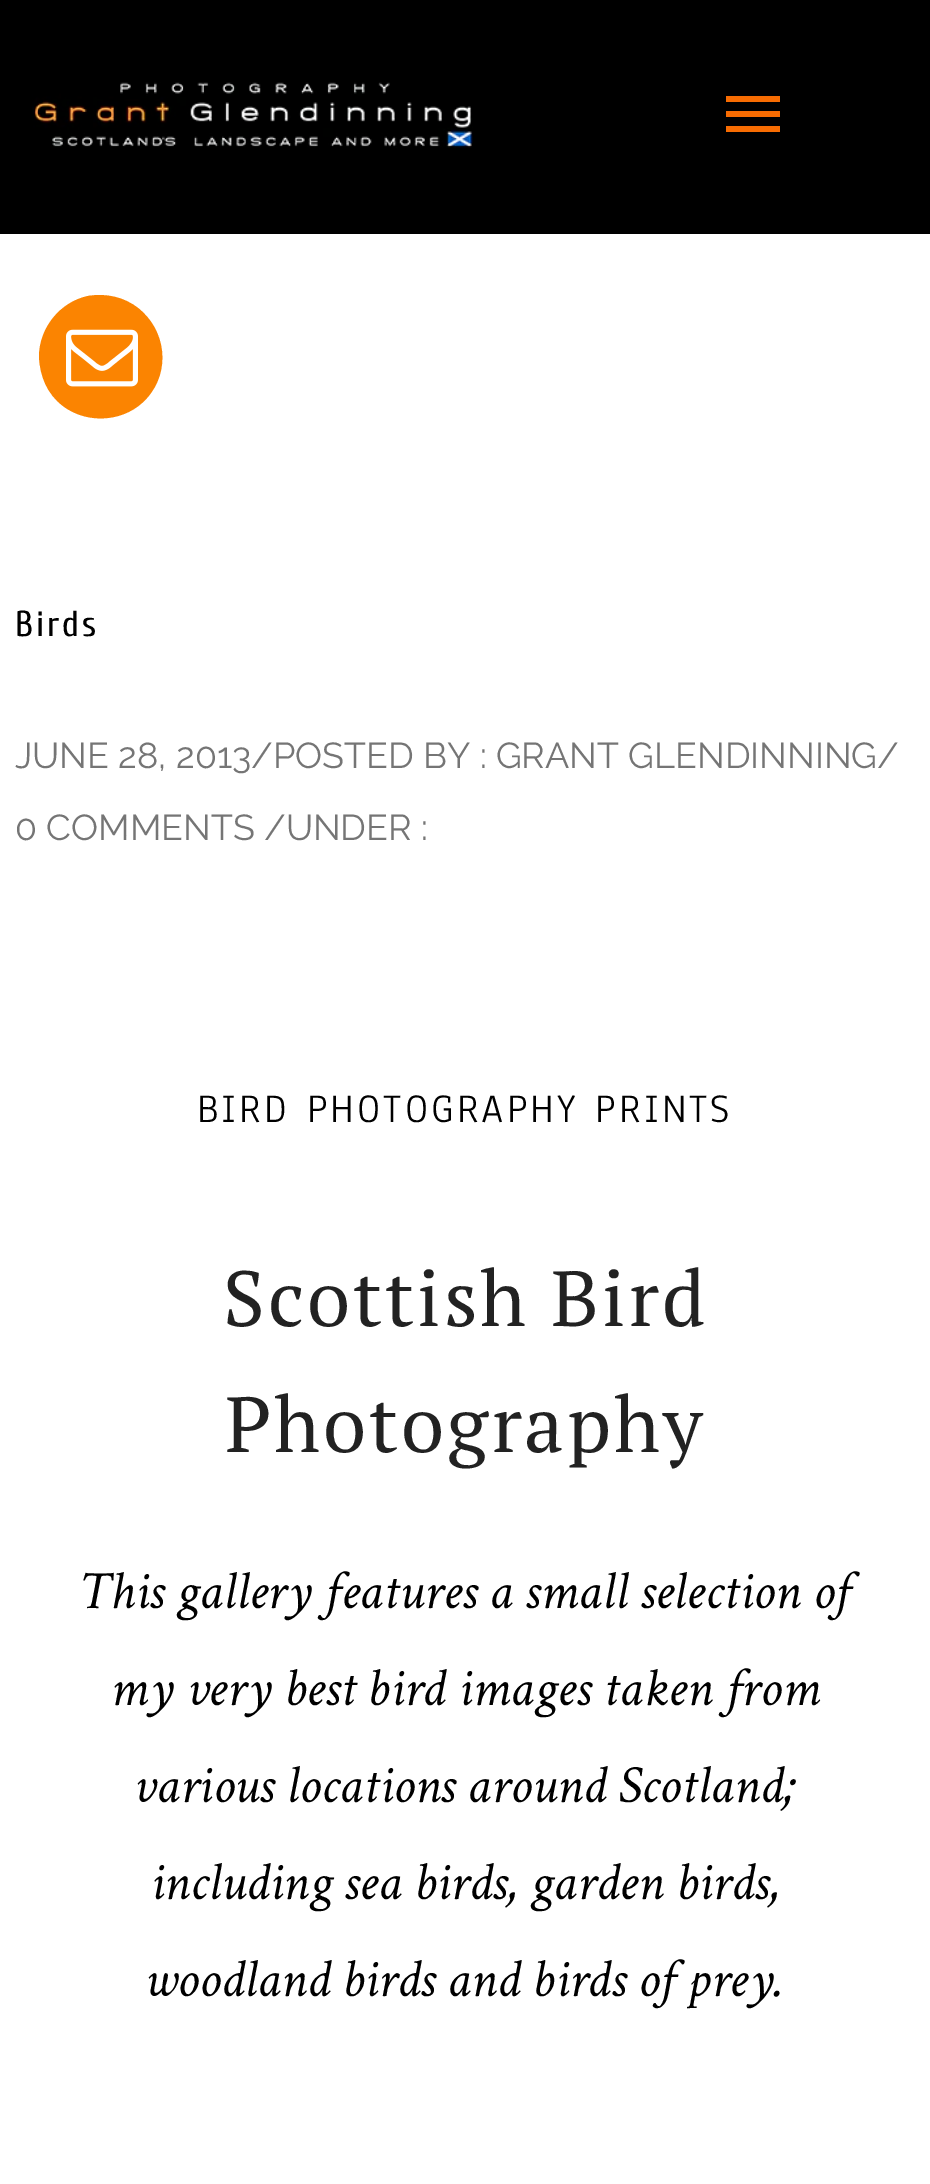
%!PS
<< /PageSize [930 2184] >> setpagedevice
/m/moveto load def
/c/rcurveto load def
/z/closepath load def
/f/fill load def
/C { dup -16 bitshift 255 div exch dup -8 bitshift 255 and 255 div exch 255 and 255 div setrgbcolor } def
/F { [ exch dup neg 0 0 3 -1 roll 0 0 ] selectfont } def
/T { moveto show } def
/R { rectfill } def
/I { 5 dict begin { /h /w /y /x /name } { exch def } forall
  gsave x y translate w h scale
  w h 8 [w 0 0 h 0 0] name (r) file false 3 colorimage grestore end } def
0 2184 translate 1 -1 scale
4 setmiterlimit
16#FFFFFF C
0 0 930 2184 R
16#FB8401 C
39 357 m 0 -29 21 -55 49 -61 c 18 -3 36 1 50 12 c 28 22 33 63 9 90 c -21 24 -59 27 -84 8 c -16 -12 -23 -30 -24 -49 c z f
(1.rgb) 66 329 72 58 I
16#000000 C
0 0 930 234 R
(2.rgb) 32 82 441 66 I
16#F76C02 C
726 96 54 6 R
726 111 54 6 R
726 126 54 6 R
/Cuprum-Regular 36 F
16#000000 C
15 636 m 3 0 (Birds) ashow
/Raleway-Regular 36 F
16#757575 C
(JUNE 28, 2013/POSTED BY : GRANT GLENDINNING/) 15 768 T
(0 COMMENTS /UNDER :) 15 840 T
/Anaheim-Regular 42 F
16#000000 C
197 1122 m 3 0 (BIRD PHOTOGRAPHY PRINTS) ashow
/PTSerif-Regular 78 F
16#222222 C
223 1326 m 3 0 (Scottish Bird) ashow
225 1452 m 3 0 (Photography) ashow
/CrimsonText-Italic 54 F
16#000000 C
(This gallery features a small selection of) 79 1608 T
(my very best bird images taken from) 110 1705 T
(various locations around Scotland;) 134 1802 T
(including sea birds, garden birds,) 150 1899 T
(woodland birds and birds of prey.) 145 1996 T
showpage
